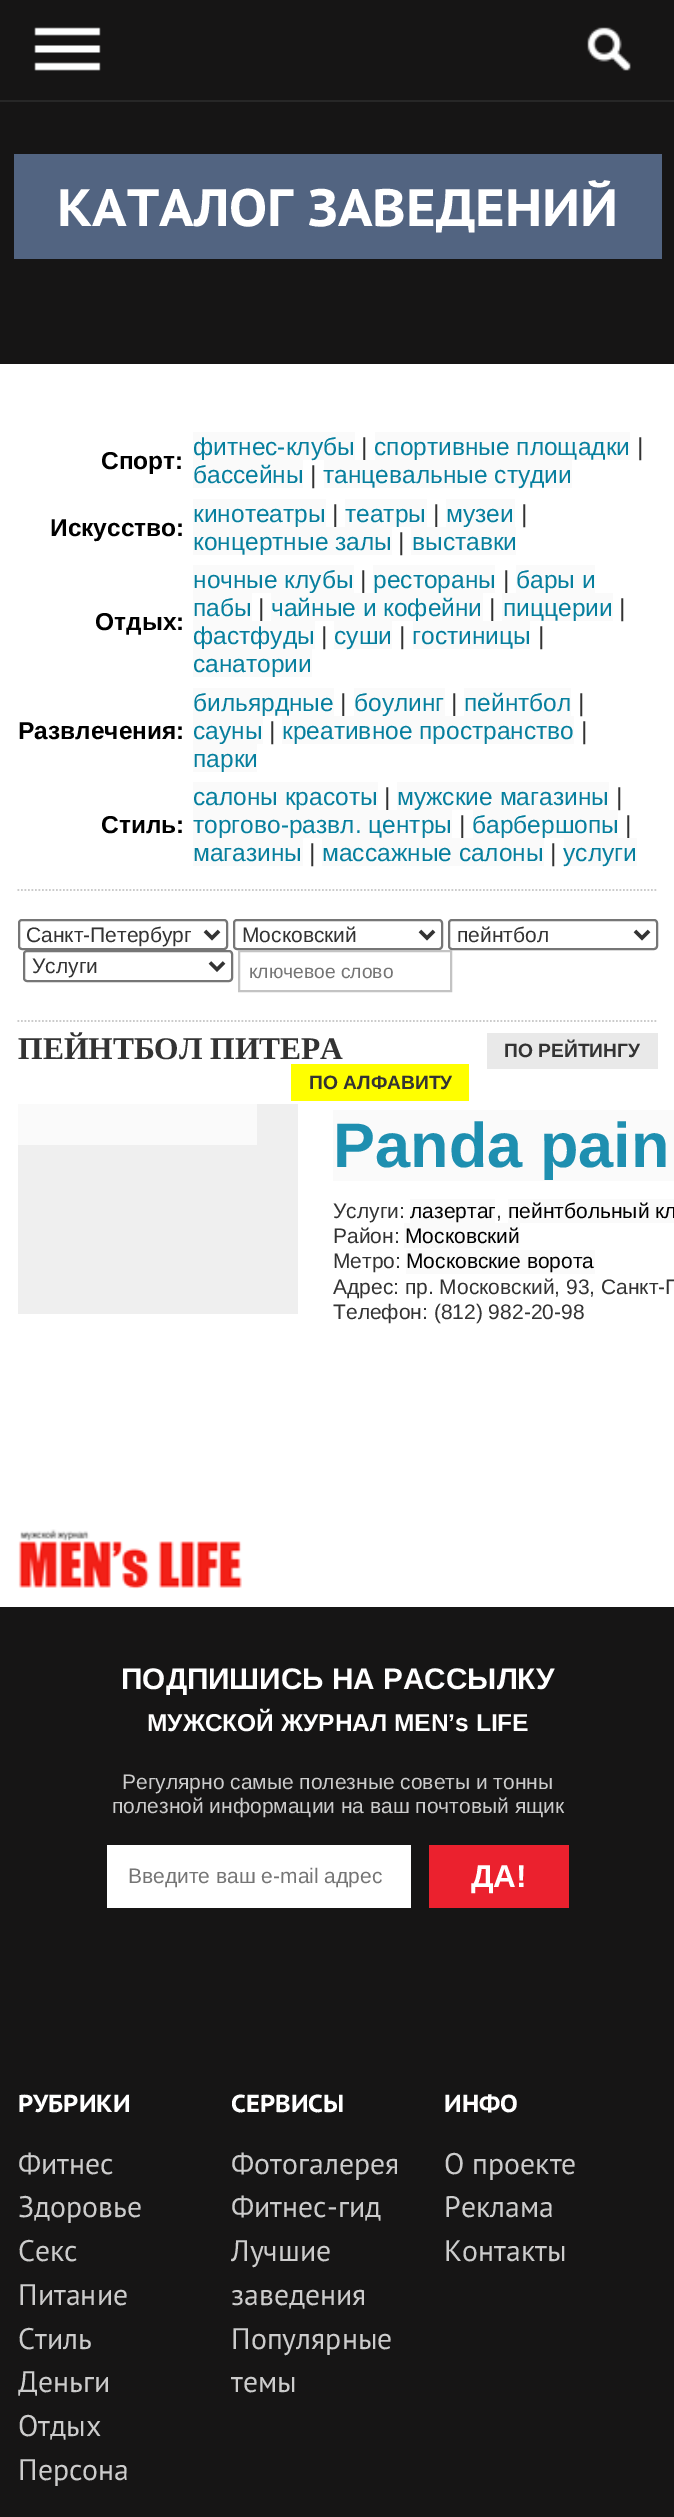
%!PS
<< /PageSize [674 2517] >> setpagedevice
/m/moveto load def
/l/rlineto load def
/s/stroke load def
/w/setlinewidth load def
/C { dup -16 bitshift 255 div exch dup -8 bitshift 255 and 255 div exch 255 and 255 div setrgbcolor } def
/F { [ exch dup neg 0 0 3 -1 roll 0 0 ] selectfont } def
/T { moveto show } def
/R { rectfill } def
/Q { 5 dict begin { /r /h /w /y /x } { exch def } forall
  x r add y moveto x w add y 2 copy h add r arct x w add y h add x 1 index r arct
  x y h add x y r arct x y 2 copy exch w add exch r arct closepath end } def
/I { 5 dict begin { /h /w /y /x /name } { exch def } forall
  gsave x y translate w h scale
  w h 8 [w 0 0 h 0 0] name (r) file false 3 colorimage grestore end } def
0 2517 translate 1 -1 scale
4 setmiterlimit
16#FFFFFF C
0 0 674 2517 R
16#161515 C
0 0 674 100 R
16#272727 C
0 100 674 2 R
(1.rgb) 34 27 67 44 I
(2.rgb) 587 27 44 44 I
16#161515 C
0 102 674 262 R
16#526481 C
14 154 648 105 R
/PTSansCaption-Bold 52.5 F
16#FFFFFF C
(КАТАЛОГ ЗАВЕДЕНИЙ) 57 226 T
/LiberationSans-Bold 24.5 F
16#000000 C
(Спорт:) 101 469 T
16#FAFAFA C
193 432 162 28 R
/LiberationSans-Regular 24.5 F
16#067F9E C
(фитнес-клубы) 193 455 T
16#333333 C
(|) 361 455 T
16#FAFAFA C
375 432 255 28 R
16#067F9E C
(спортивные площадки) 374 455 T
16#333333 C
(|) 637 455 T
16#FAFAFA C
193 460 110 28 R
16#067F9E C
(бассейны) 193 483 T
16#333333 C
(|) 310 483 T
16#FAFAFA C
324 460 248 28 R
16#067F9E C
(танцевальные студии) 323 483 T
/LiberationSans-Bold 24.5 F
16#000000 C
(Искусство:) 50 536 T
16#FAFAFA C
193 499 133 28 R
/LiberationSans-Regular 24.5 F
16#067F9E C
(кинотеатры) 193 522 T
16#333333 C
(|) 332 522 T
16#FAFAFA C
345 499 82 28 R
16#067F9E C
(театры) 345 522 T
16#333333 C
(|) 433 522 T
16#FAFAFA C
446 499 69 28 R
16#067F9E C
(музеи) 446 522 T
16#333333 C
(|) 521 522 T
16#FAFAFA C
193 527 199 28 R
16#067F9E C
(концертные залы) 193 550 T
16#333333 C
(|) 398 550 T
16#FAFAFA C
411 527 105 28 R
16#067F9E C
(выставки) 412 550 T
/LiberationSans-Bold 24.5 F
16#000000 C
(Отдых:) 95 630 T
16#FAFAFA C
193 565 161 28 R
/LiberationSans-Regular 24.5 F
16#067F9E C
(ночные клубы) 193 588 T
16#333333 C
(|) 360 588 T
16#FAFAFA C
373 565 122 28 R
16#067F9E C
(рестораны) 373 588 T
16#333333 C
(|) 503 588 T
16#FAFAFA C
516 565 79 28 R
16#067F9E C
(бары и) 516 588 T
16#FAFAFA C
193 593 59 28 R
16#067F9E C
(пабы) 193 616 T
16#333333 C
(|) 258 616 T
16#FAFAFA C
271 593 212 28 R
16#067F9E C
(чайные и кофейни) 271 616 T
16#333333 C
(|) 489 616 T
16#FAFAFA C
502 593 111 28 R
16#067F9E C
(пиццерии) 503 616 T
16#333333 C
(|) 619 616 T
16#FAFAFA C
193 621 122 28 R
16#067F9E C
(фастфуды) 193 644 T
16#333333 C
(|) 321 644 T
16#FAFAFA C
334 621 58 28 R
16#067F9E C
(суши) 334 644 T
16#333333 C
(|) 399 644 T
16#FAFAFA C
413 621 117 28 R
16#067F9E C
(гостиницы) 412 644 T
16#333333 C
(|) 538 644 T
16#FAFAFA C
193 649 119 28 R
16#067F9E C
(санатории) 193 672 T
/LiberationSans-Bold 24.5 F
16#000000 C
(Развлечения:) 18 739 T
16#FAFAFA C
193 688 141 28 R
/LiberationSans-Regular 24.5 F
16#067F9E C
(бильярдные) 193 711 T
16#333333 C
(|) 340 711 T
16#FAFAFA C
354 688 91 28 R
16#067F9E C
(боулинг) 354 711 T
16#333333 C
(|) 451 711 T
16#FAFAFA C
464 688 107 28 R
16#067F9E C
(пейнтбол) 464 711 T
16#333333 C
(|) 578 711 T
16#FAFAFA C
193 716 70 28 R
16#067F9E C
(сауны) 193 739 T
16#333333 C
(|) 269 739 T
16#FAFAFA C
282 716 292 28 R
16#067F9E C
(креативное пространство) 282 739 T
16#333333 C
(|) 581 739 T
16#FAFAFA C
193 744 64 28 R
16#067F9E C
(парки) 193 767 T
/LiberationSans-Bold 24.5 F
16#000000 C
(Стиль:) 101 833 T
16#FAFAFA C
193 782 185 28 R
/LiberationSans-Regular 24.5 F
16#067F9E C
(салоны красоты) 193 805 T
16#333333 C
(|) 384 805 T
16#FAFAFA C
397 782 212 28 R
16#067F9E C
(мужские магазины) 397 805 T
16#333333 C
(|) 616 805 T
16#FAFAFA C
193 810 259 28 R
16#067F9E C
(торгово-развл. центры) 193 833 T
16#333333 C
(|) 459 833 T
16#FAFAFA C
473 810 145 28 R
16#067F9E C
(барбершопы) 472 833 T
16#333333 C
(|) 625 833 T
16#FAFAFA C
193 838 110 28 R
16#067F9E C
(магазины) 193 861 T
16#333333 C
(|) 309 861 T
16#FAFAFA C
322 838 222 28 R
16#067F9E C
(массажные салоны) 322 861 T
16#333333 C
(|) 550 861 T
16#FAFAFA C
564 838 73 28 R
16#067F9E C
(услуги) 563 861 T
16#CBCBCB C
1.8 w
[1.75 1.75] 0 setdash
17.5 890 m 640.5 0 l s
16#767676 C
2 w
[] 0 setdash
19 920 208 29 3 Q s
16#333333 C
3.5 w
205 931 m 7 7 l 7 -7 l s
/LiberationSans-Regular 21 F
(Санкт-Петербург) 26 942 T
16#767676 C
2 w
234 920 208 29 3 Q s
16#333333 C
3.5 w
420 931 m 7 7 l 7 -7 l s
(Московский) 242 942 T
16#767676 C
2 w
449 920 208 29 3 Q s
16#333333 C
3.5 w
635 931 m 7 7 l 7 -7 l s
(пейнтбол) 457 942 T
16#767676 C
2 w
24 951 208 30 3 Q s
16#333333 C
3.5 w
210 962.5 m 7 7 l 7 -7 l s
(Услуги) 32 973 T
16#C3C3C3 C
2 w
239 951 212 40 rectstroke
/LiberationSans-Regular 19.25 F
16#757575 C
(ключевое слово) 249 978 T
16#CBCBCB C
1.8 w
[1.75 1.75] 0 setdash
17.5 1021 m 640.5 0 l s
/LiberationSerif-Bold 31.5 F
16#333333 C
(ПЕЙНТБОЛ ПИТЕРА) 18 1059 T
16#E9E9E9 C
487 1033 171 36 R
/LiberationSans-Bold 19.25 F
16#333333 C
(ПО РЕЙТИНГУ) 504 1057 T
16#FFFF00 C
291 1064 178 37 R
16#333333 C
(ПО АЛФАВИТУ) 309 1089 T
16#EFEFEF C
18 1104 280 210 R
16#FAFAFA C
18 1104 239 41 R
333 1110 341 71 R
/LiberationSans-Bold 63 F
16#1E8FB0 C
(Panda pain) 333 1167 T
/LiberationSans-Regular 21 F
16#333333 C
(Услуги:) 333 1218 T
16#FAFAFA C
410 1199 85 24 R
16#000000 C
(лазертаг) 410 1218 T
16#333333 C
(,) 496 1218 T
16#FAFAFA C
508 1199 166 24 R
16#000000 C
(пейнтбольный кл) 508 1218 T
16#333333 C
(Район:) 333 1243 T
16#FAFAFA C
404 1223 116 25 R
16#000000 C
(Московский) 405 1243 T
16#333333 C
(Метро:) 333 1268 T
16#FAFAFA C
406 1250 189 24 R
16#000000 C
(Московские ворота) 406 1268 T
16#333333 C
(Адрес: пр. Московский, 93, Санкт-П) 333 1294 T
(Телефон: \(812\) 982-20-98) 333 1319 T
(3.rgb) 18 1529 224 60 I
16#161515 C
0 1607 674 910 R
/LiberationSans-Bold 29.75 F
16#FFFFFF C
(ПОДПИШИСЬ НА РАССЫЛКУ) 121 1689 T
/LiberationSans-Bold 24.5 F
(МУЖСКОЙ ЖУРНАЛ MEN’s LIFE) 147 1731 T
/LiberationSans-Regular 21 F
16#CCCCCC C
(Регулярно самые полезные советы и тонны) 122 1789 T
(полезной информации на ваш почтовый ящик) 112 1813 T
16#FFFFFF C
107 1845 304 63 R
16#757575 C
(Введите ваш e-mail адрес) 128 1883 T
16#EB212E C
429 1845 140 63 R
/LiberationSans-Bold 31.5 F
16#FFFFFF C
(ДА!) 471 1887 T
/PTSansCaption-Bold 24.5 F
(РУБРИКИ) 18 2112 T
/PTSans-Regular 29.75 F
16#CCCCCC C
(Фитнес) 18 2174 T
(Здоровье) 18 2217 T
(Секс) 18 2261 T
(Питание) 18 2305 T
(Стиль) 18 2349 T
(Деньги) 18 2392 T
(Отдых) 18 2436 T
(Персона) 18 2480 T
/PTSansCaption-Bold 24.5 F
16#FFFFFF C
(СЕРВИСЫ) 231 2112 T
/PTSans-Regular 29.75 F
16#CCCCCC C
(Фотогалерея) 231 2174 T
(Фитнес-гид) 231 2217 T
(Лучшие) 231 2261 T
(заведения) 231 2305 T
(Популярные) 231 2349 T
(темы) 231 2392 T
/PTSansCaption-Bold 24.5 F
16#FFFFFF C
(ИНФО) 444 2112 T
/PTSans-Regular 29.75 F
16#CCCCCC C
(О проекте) 444 2174 T
(Реклама) 444 2217 T
(Контакты) 444 2261 T
showpage
